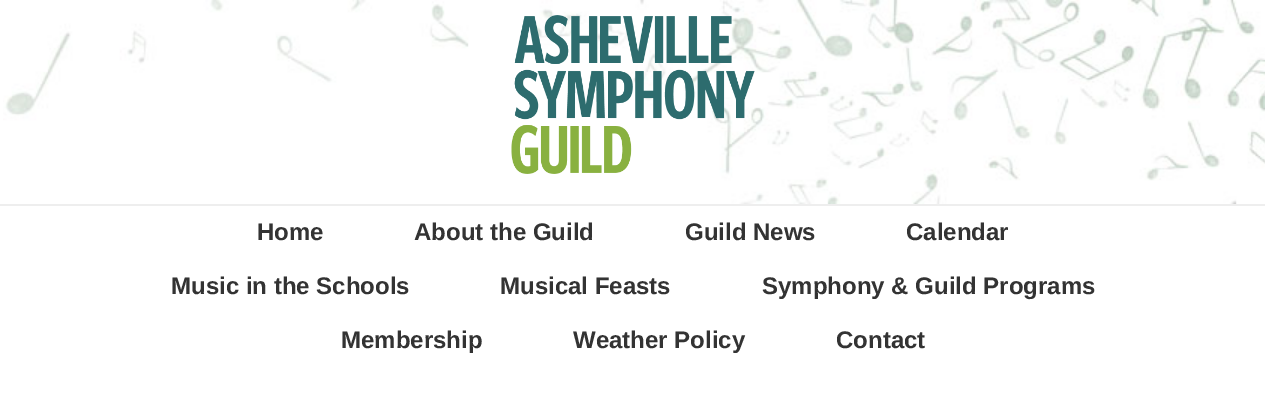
%!PS
<< /PageSize [1265 397] >> setpagedevice
/C { dup -16 bitshift 255 div exch dup -8 bitshift 255 and 255 div exch 255 and 255 div setrgbcolor } def
/F { [ exch dup neg 0 0 3 -1 roll 0 0 ] selectfont } def
/T { moveto show } def
/R { rectfill } def
/I { 5 dict begin { /h /w /y /x /name } { exch def } forall
  gsave x y translate w h scale
  w h 8 [w 0 0 h 0 0] name (r) file false 3 colorimage grestore end } def
0 397 translate 1 -1 scale
4 setmiterlimit
16#FFFFFF C
0 0 1265 397 R
(1.rgb) 3 0 1262 204 I
(2.rgb) 511 15 244 159 I
16#EEEEEE C
0 204 1265 2 R
/LiberationSans-Bold 24 F
16#333333 C
(Home) 257 240 T
(About the Guild) 414 240 T
(Guild News) 685 240 T
(Calendar) 906 240 T
(Music in the Schools) 171 294 T
(Musical Feasts) 500 294 T
(Symphony & Guild Programs) 762 294 T
(Membership) 341 348 T
(Weather Policy) 573 348 T
(Contact) 836 348 T
showpage
